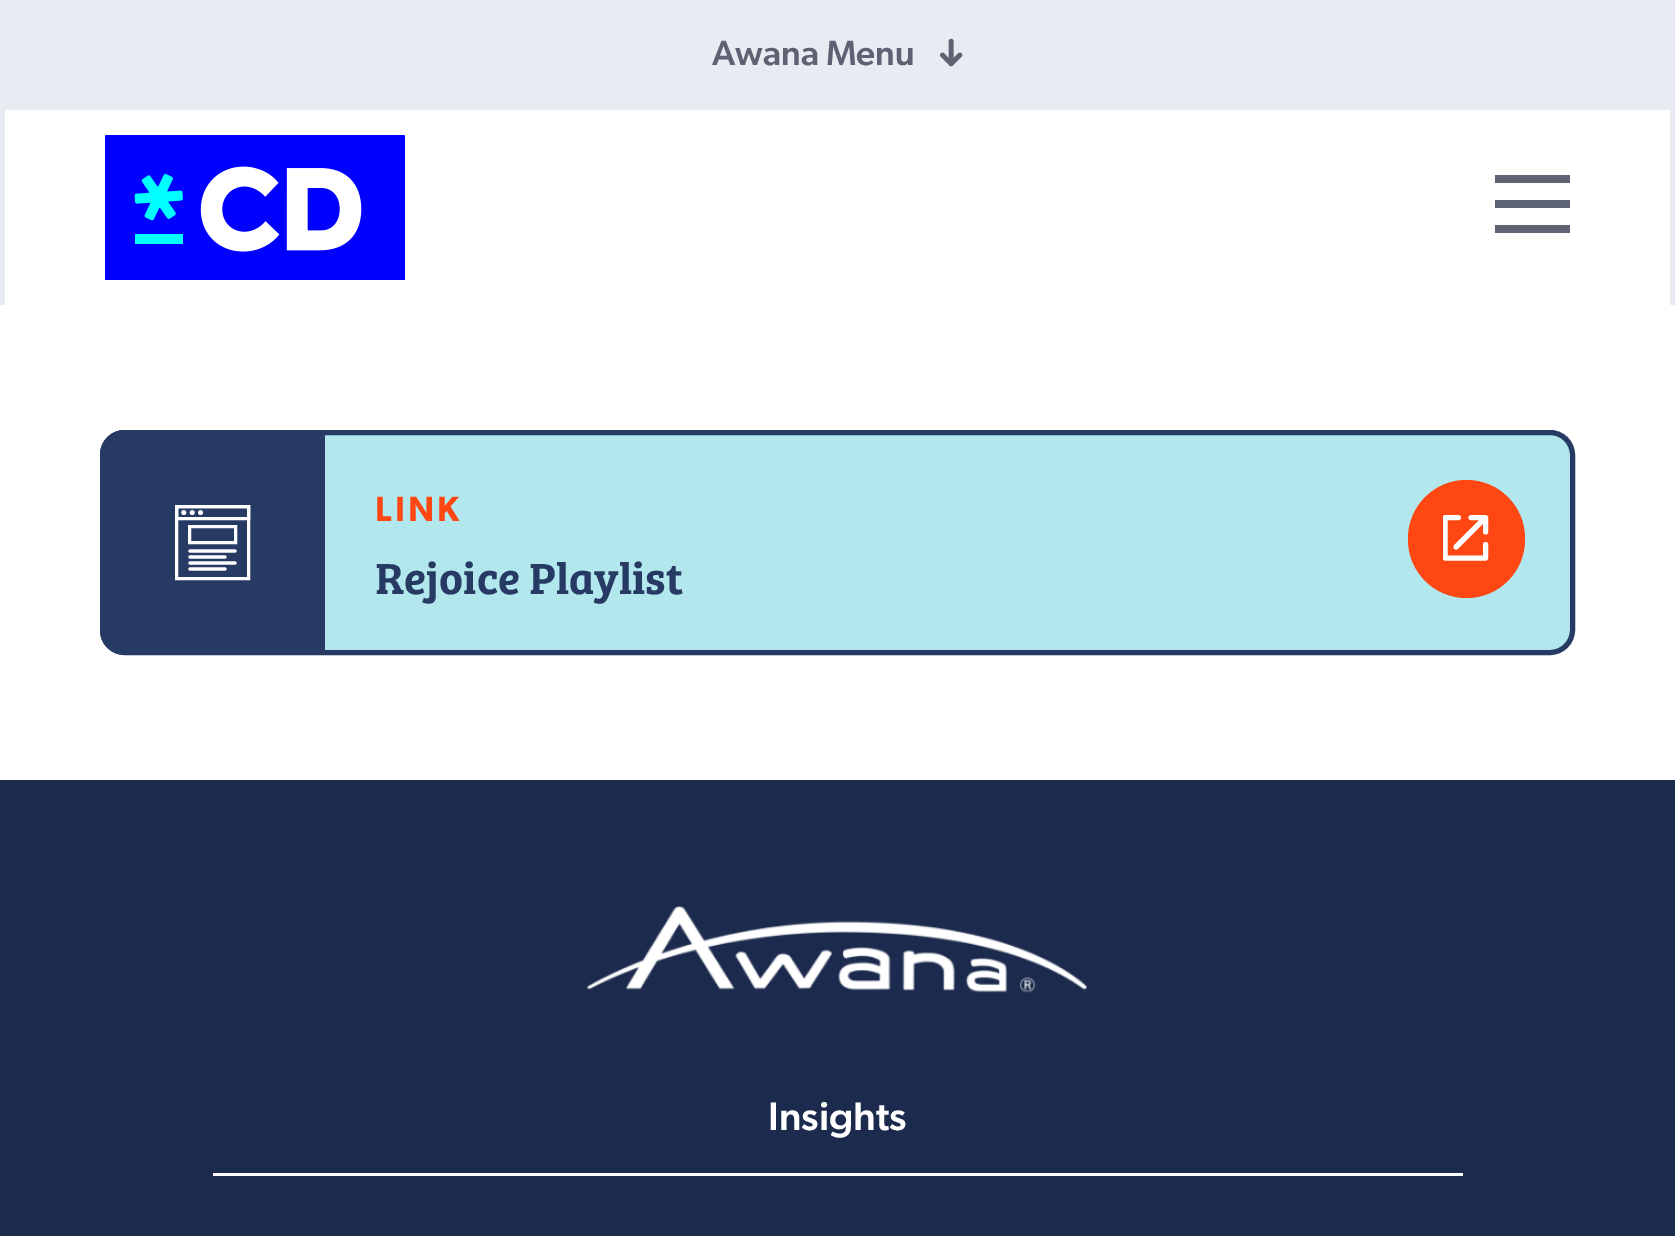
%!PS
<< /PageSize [1675 1236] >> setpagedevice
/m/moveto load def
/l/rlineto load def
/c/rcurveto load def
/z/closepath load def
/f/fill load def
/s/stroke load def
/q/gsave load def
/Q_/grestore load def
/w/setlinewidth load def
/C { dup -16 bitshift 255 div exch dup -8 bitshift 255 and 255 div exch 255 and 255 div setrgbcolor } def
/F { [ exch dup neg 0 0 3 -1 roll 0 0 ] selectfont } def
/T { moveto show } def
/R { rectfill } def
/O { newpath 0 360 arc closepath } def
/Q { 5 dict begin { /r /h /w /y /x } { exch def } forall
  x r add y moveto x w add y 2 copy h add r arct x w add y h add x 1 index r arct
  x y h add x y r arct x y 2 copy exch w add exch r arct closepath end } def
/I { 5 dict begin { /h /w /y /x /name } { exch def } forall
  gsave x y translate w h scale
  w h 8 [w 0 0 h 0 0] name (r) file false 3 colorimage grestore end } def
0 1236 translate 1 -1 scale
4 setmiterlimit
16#FFFFFF C
0 0 1675 1236 R
16#E8EBF1 C
0 0 1675 105 R
/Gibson-Medium 35 F
16#5D6272 C
(Awana Menu) 712 65 T
(1.rgb) 940 38 23 29 I
16#E8ECF2 C
0 105 1675 5 R
1670 105 5 200 R
0 105 5 200 R
(2.rgb) 105 135 300 145 I
16#5D6373 C
1495 175 75 8 R
1495 200 75 8 R
1495 225 75 8 R
16#B2E8ED C
102.5 432.5 1470 220 22.5 Q q f Q_
16#263A63 C
5 w
s
125 430 m 200 0 l 0 225 l -200 0 l -14 0 -25 -11 -25 -25 c 0 -175 l 0 -14 11 -25 25 -25 c z f
16#FFFFFF C
3 w
176.5 506.5 72 72 rectstroke
176.5 506.5 72 12 rectstroke
183.8 512.6 2.4 O f
192.2 512.6 2.4 O f
200.5 512.6 2.4 O f
189.5 526.5 46 16 rectstroke
3.2 w
1 setlinecap
1 setlinejoin
190 569 m 35 0 l 190 563 m 45 0 l 190 557 m 35 0 l 190 551 m 45 0 l s
/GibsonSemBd-SemiBold 35 F
16#FF4713 C
375 521 m 3 0 (LINK) ashow
/BreeSerif-SemiBold 45 F
16#263A63 C
(Rejoice Playlist) 375 594 T
16#FF4713 C
1408 480 117 118 58.5 Q f
16#FFFFFF C
5 w
1456 547 m 28 -28 l 1471 517.5 m 14.5 0 l 0 14.5 l s
q
1443 515 47 48 rectclip
1485.5 544.5 m 0 13.5 l -40.5 0 l 0 -40.5 l 13.5 0 l s
Q_
16#1C2B4D C
0 780 1675 456 R
(3.rgb) 587 906 500 87 I
/Gibson-Medium 40 F
16#FFFFFF C
(Insights) 768 1130 T
213 1173 1250 3 R
showpage
